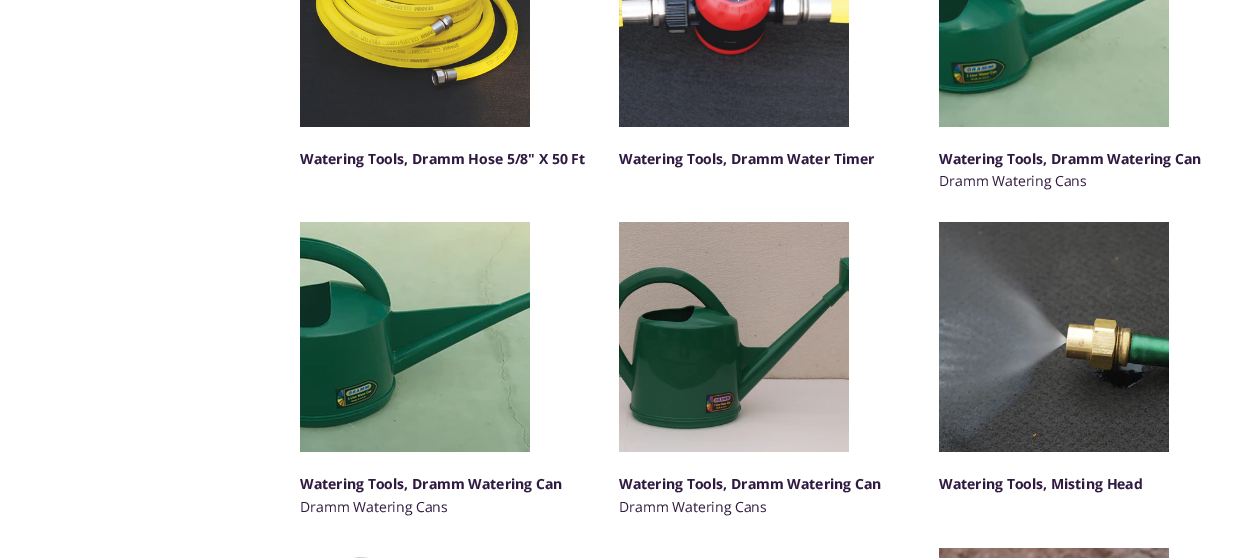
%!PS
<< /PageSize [1258 558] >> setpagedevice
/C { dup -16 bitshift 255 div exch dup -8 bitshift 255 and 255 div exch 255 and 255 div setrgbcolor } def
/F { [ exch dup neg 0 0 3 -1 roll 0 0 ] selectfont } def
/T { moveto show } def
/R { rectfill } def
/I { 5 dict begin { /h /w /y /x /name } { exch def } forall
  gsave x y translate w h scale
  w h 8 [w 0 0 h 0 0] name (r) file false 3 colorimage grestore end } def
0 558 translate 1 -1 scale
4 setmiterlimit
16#FFFFFF C
0 0 1258 558 R
(1.rgb) 300 0 230 127 I
/OpenSans-Bold 14 F
16#301A41 C
(Watering Tools, Dramm Hose 5/8" X 50 Ft) 300 164 T
(2.rgb) 619 0 230 127 I
(Watering Tools, Dramm Water Timer) 619 164 T
(3.rgb) 939 0 230 127 I
(Watering Tools, Dramm Watering Can) 939 164 T
/OpenSans-Regular 14 F
(Dramm Watering Cans) 939 186 T
(4.rgb) 300 222 230 230 I
/OpenSans-Bold 14 F
(Watering Tools, Dramm Watering Can) 300 489 T
/OpenSans-Regular 14 F
(Dramm Watering Cans) 300 512 T
(5.rgb) 619 222 230 230 I
/OpenSans-Bold 14 F
(Watering Tools, Dramm Watering Can) 619 489 T
/OpenSans-Regular 14 F
(Dramm Watering Cans) 619 512 T
(6.rgb) 939 222 230 230 I
/OpenSans-Bold 14 F
(Watering Tools, Misting Head) 939 489 T
(7.rgb) 353 557 16 1 I
(8.rgb) 939 548 230 10 I
showpage
